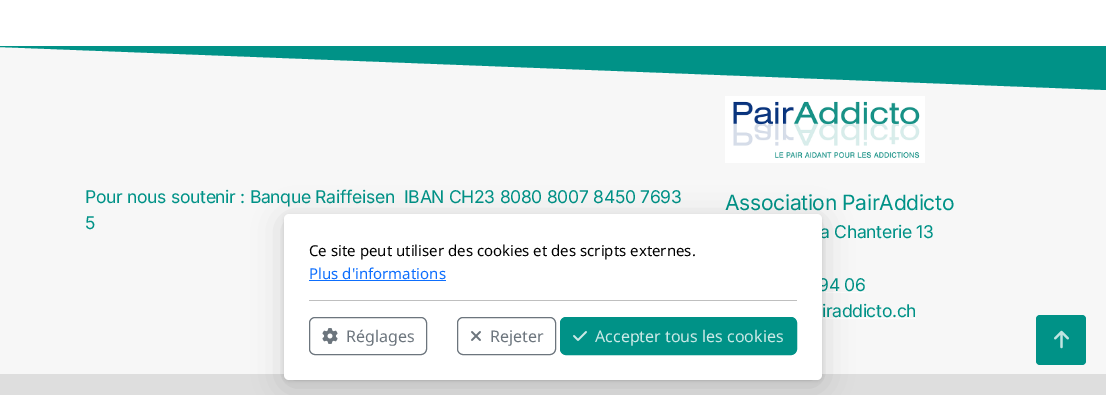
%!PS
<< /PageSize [1106 395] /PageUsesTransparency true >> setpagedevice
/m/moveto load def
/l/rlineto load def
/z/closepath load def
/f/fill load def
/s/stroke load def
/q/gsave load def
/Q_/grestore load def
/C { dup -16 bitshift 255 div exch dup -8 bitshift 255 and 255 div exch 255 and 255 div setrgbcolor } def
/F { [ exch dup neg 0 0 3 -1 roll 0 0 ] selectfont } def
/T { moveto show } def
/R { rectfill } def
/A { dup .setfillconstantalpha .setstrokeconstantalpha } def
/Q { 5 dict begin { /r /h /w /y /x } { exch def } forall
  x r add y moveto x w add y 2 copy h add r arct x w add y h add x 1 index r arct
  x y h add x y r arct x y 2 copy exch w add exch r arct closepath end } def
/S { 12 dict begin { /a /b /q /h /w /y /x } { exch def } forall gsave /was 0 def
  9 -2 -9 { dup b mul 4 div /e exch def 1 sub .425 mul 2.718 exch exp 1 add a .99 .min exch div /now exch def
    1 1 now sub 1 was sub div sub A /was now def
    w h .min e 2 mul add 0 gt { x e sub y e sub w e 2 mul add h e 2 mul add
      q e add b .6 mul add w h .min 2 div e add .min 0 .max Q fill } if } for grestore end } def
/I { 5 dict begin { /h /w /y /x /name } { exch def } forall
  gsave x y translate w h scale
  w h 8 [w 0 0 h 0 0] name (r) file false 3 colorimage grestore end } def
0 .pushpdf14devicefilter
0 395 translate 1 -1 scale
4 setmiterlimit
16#FFFFFF C
0 0 1106 395 R
16#F7F7F7 C
0 47 1106 327 R
q
0 46 1106 45 rectclip
16#009287 C
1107 90 m -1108 -43 l 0 -3 l 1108 0 l z f
Q_
/Inter-Regular 17.6 F
16#009287 C
85 203 m -.35 0 (Pour nous soutenir : Banque Raiffeisen  IBAN CH23 8080 8007 8450 7693) ashow
85 229 m -.35 0 (5) ashow
(1.rgb) 725 96 200 67 I
/Inter-Regular 21.1 F
725 210 m -.35 0 (Association PairAddicto) ashow
/Inter-Regular 17.6 F
820 238 m -.35 0 (a Chanterie 13) ashow
818 291 m -.35 0 (94 06) ashow
16#FDFDFD C
822 292 43 1 R
16#009287 C
822 317 m -.35 0 (iraddicto.ch) ashow
16#FDFDFD C
822 318 94 1 R
16#DEDEDE C
0 374 1106 21 R
16#000000 C
284 219 538 166 5 15 .16 S
284 215 538 166 5 1.5 .1 S
16#FFFFFF C
284 214 538 166 5 Q f
/NotoSans-Regular 15 F
16#000000 C
(Ce site peut utiliser des cookies et des scripts externes.) 309 256 T
16#0D6EFD C
(Plus d'informations) 309 279 T
309 280 137 1 R
16#BFBFBF C
309 300 488 1 R
16#6C757D C
309.5 317.5 117 37 5.5 Q s
(2.rgb) 322 328 16 16 I
/NotoSans-Regular 16 F
(Réglages) 346 342 T
457.5 317.5 98 37 5.5 Q s
(3.rgb) 471 331 10 10 I
(Rejeter) 490 342 T
16#009287 C
560.5 317.5 236 37 5.5 Q q f Q_
s
(4.rgb) 573 331 14 10 I
16#CCE9E7 C
(Accepter tous les cookies) 595 342 T
16#009287 C
1036 315 50 50 4 Q f
(5.rgb) 1054 330 15 19 I
.poppdf14devicefilter showpage
